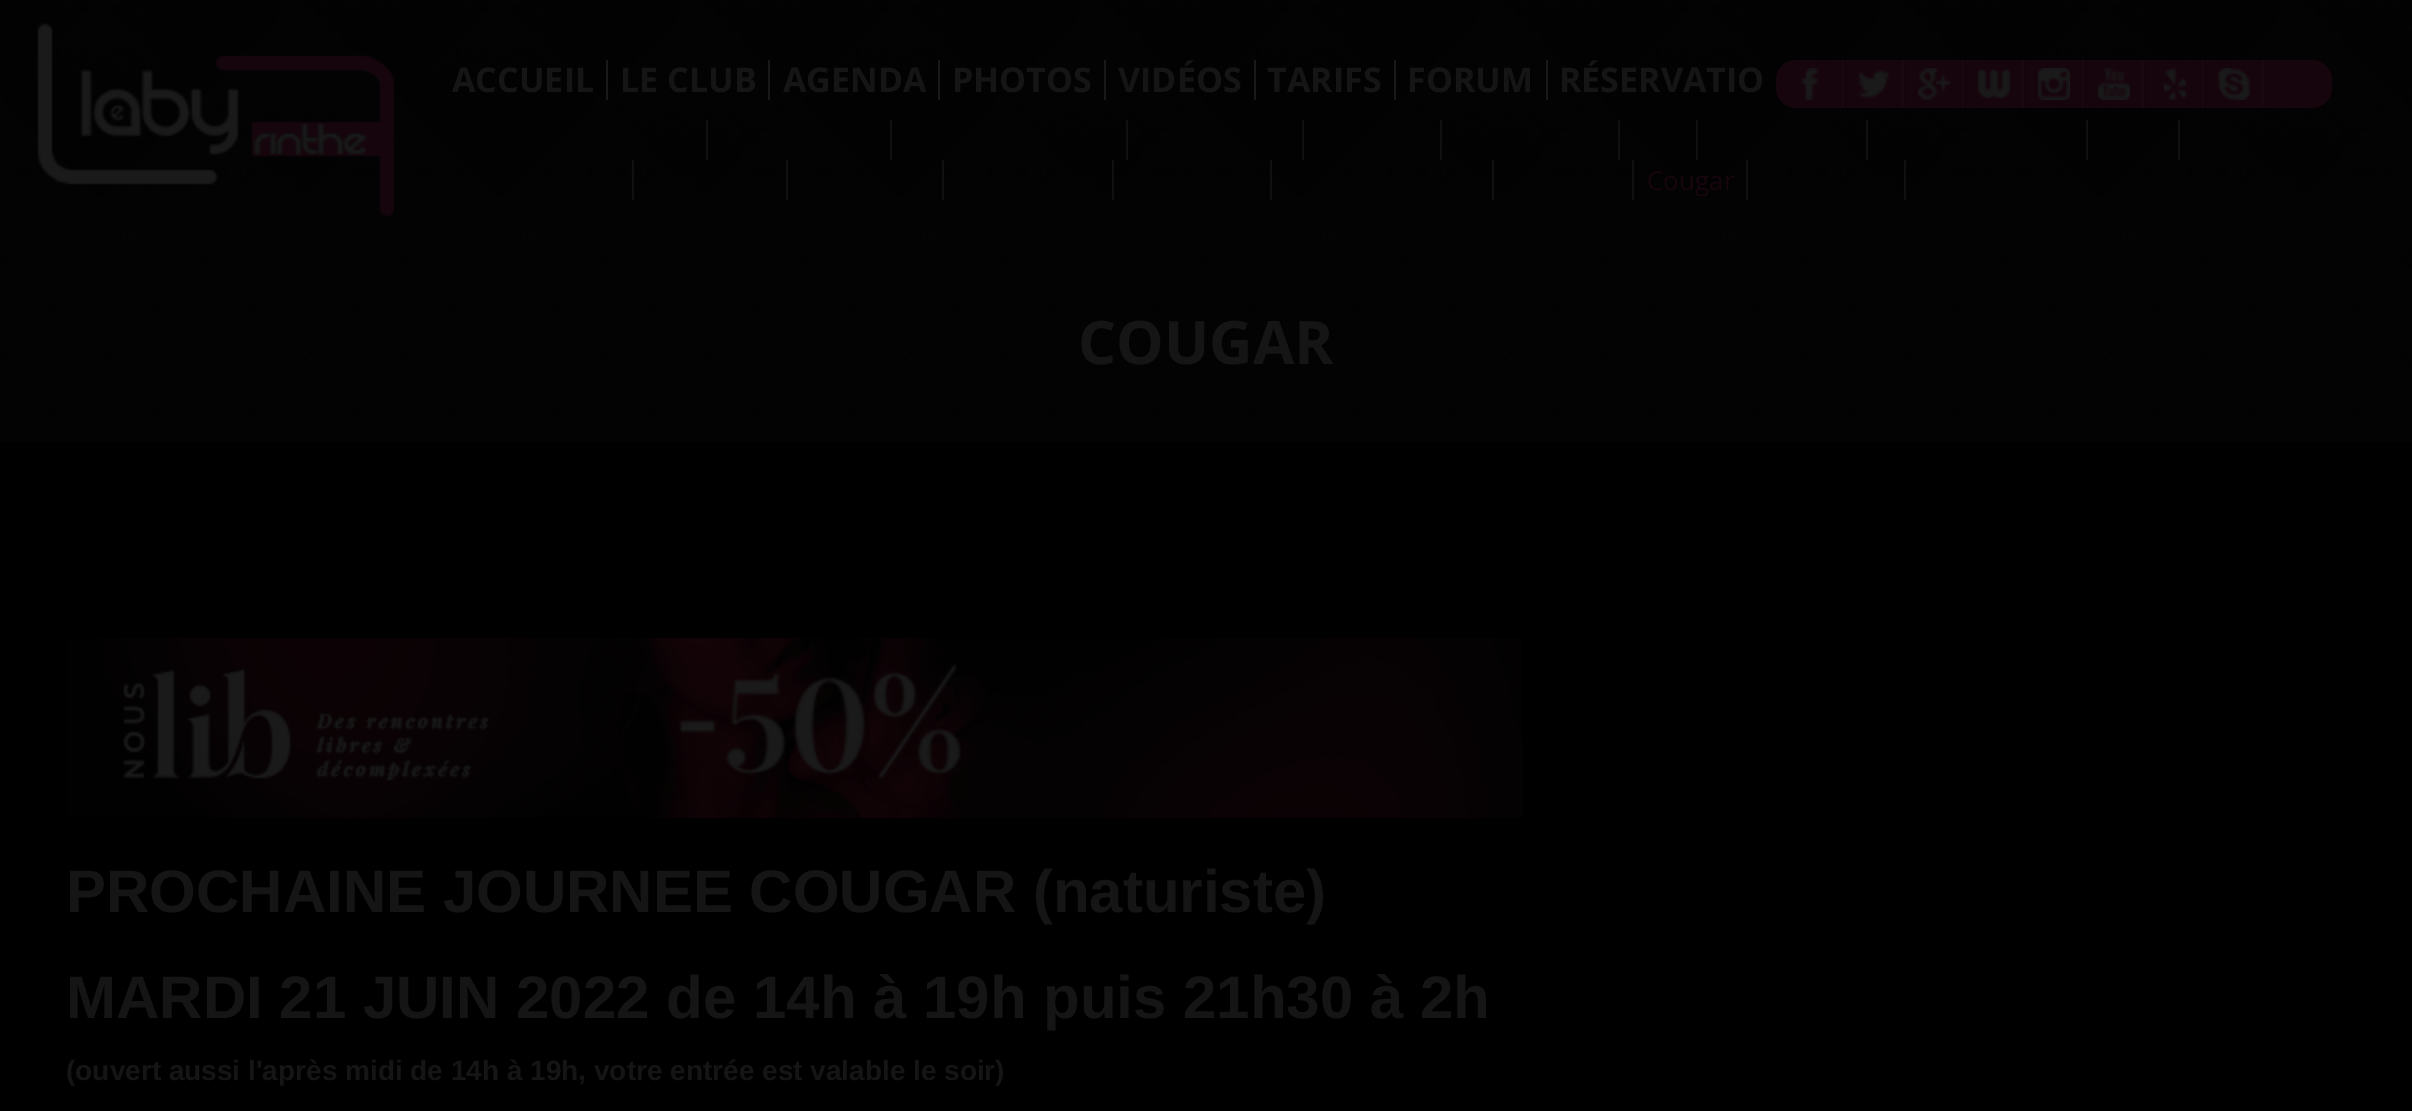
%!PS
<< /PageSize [2412 1111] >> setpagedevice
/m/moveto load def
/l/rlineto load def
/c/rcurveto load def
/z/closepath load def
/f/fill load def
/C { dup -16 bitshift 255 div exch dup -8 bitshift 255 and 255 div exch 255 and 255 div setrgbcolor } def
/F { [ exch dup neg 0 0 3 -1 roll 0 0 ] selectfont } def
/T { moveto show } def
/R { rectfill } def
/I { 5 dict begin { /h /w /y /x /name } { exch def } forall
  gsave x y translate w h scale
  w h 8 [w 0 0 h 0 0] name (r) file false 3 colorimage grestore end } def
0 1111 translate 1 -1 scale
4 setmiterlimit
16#000000 C
0 0 2412 1111 R
(1.rgb) 0 0 2412 240 I
(2.rgb) 37 23 358 194 I
16#191919 C
606 60 2 40 R
/OpenSans-Bold 34 F
16#151515 C
(ACCUEIL) 452 92 T
16#191919 C
768 60 2 40 R
16#151515 C
(LE CLUB) 620 92 T
16#191919 C
938 60 2 40 R
16#151515 C
(AGENDA) 783 92 T
16#191919 C
1104 60 2 40 R
16#151515 C
(PHOTOS) 952 92 T
16#191919 C
1254 60 2 40 R
16#151515 C
(VIDÉOS) 1118 92 T
16#191919 C
1394 60 2 40 R
16#151515 C
(TARIFS) 1267 92 T
16#191919 C
1546 60 2 40 R
16#151515 C
(FORUM) 1407 92 T
(RÉSERVATIO) 1559 92 T
16#17050E C
1796 60 m 48 0 l 0 48 l -48 0 l -11 0 -20 -9 -20 -20 c 0 -8 l 0 -11 9 -20 20 -20 c z f
(3.rgb) 1801 68 18 32 I
16#180910 C
1842 60 2 48 R
16#17050E C
1846 60 56 48 R
(4.rgb) 1858 69 32 30 I
16#180910 C
1902 60 2 48 R
16#16030C C
1844 60 2 48 R
16#17050E C
1906 60 56 48 R
(5.rgb) 1918 68 32 32 I
16#180910 C
1962 60 2 48 R
16#16030C C
1904 60 2 48 R
16#17050E C
1966 60 56 48 R
(6.rgb) 1978 69 32 30 I
16#180910 C
2022 60 2 48 R
16#16030C C
1964 60 2 48 R
16#17050E C
2026 60 56 48 R
(7.rgb) 2038 68 32 32 I
16#180910 C
2082 60 2 48 R
16#16030C C
2024 60 2 48 R
16#17050E C
2086 60 56 48 R
(8.rgb) 2098 68 32 32 I
16#180910 C
2142 60 2 48 R
16#16030C C
2084 60 2 48 R
16#17050E C
2146 60 56 48 R
(9.rgb) 2163 68 24 32 I
16#180910 C
2202 60 2 48 R
16#16030C C
2144 60 2 48 R
16#17050E C
2206 60 56 48 R
(10.rgb) 2218 68 32 32 I
16#180910 C
2262 60 2 48 R
16#16030C C
2204 60 2 48 R
16#17050E C
2264 60 m 48 0 l 11 0 20 9 20 20 c 0 8 l 0 11 -9 20 -20 20 c -48 0 l z f
16#101010 C
706 120 2 40 R
890 120 2 40 R
1126 120 2 40 R
1302 120 2 40 R
1440 120 2 40 R
1618 120 2 40 R
1696 120 2 40 R
1866 120 2 40 R
2086 120 2 40 R
2178 120 2 40 R
632 160 2 40 R
786 160 2 40 R
942 160 2 40 R
1112 160 2 40 R
1270 160 2 40 R
1492 160 2 40 R
1632 160 2 40 R
1746 160 2 40 R
/OpenSans-Regular 26 F
16#17050E C
(Cougar) 1647 190 T
16#101010 C
1904 160 2 40 R
(11.rgb) 0 240 2412 202 I
/OpenSans-Bold 60 F
16#151515 C
(COUGAR) 1078 364 T
(12.rgb) 66 638 1456 180 I
/LiberationSans-Bold 60 F
(PROCHAINE JOURNEE COUGAR \(naturiste\)) 66 912 T
(MARDI 21 JUIN 2022 de 14h à 19h puis 21h30 à 2h) 66 1018 T
/LiberationSans-Bold 28 F
(\(ouvert aussi l'après midi de 14h à 19h, votre entrée est valable le soir\)) 66 1080 T
showpage
